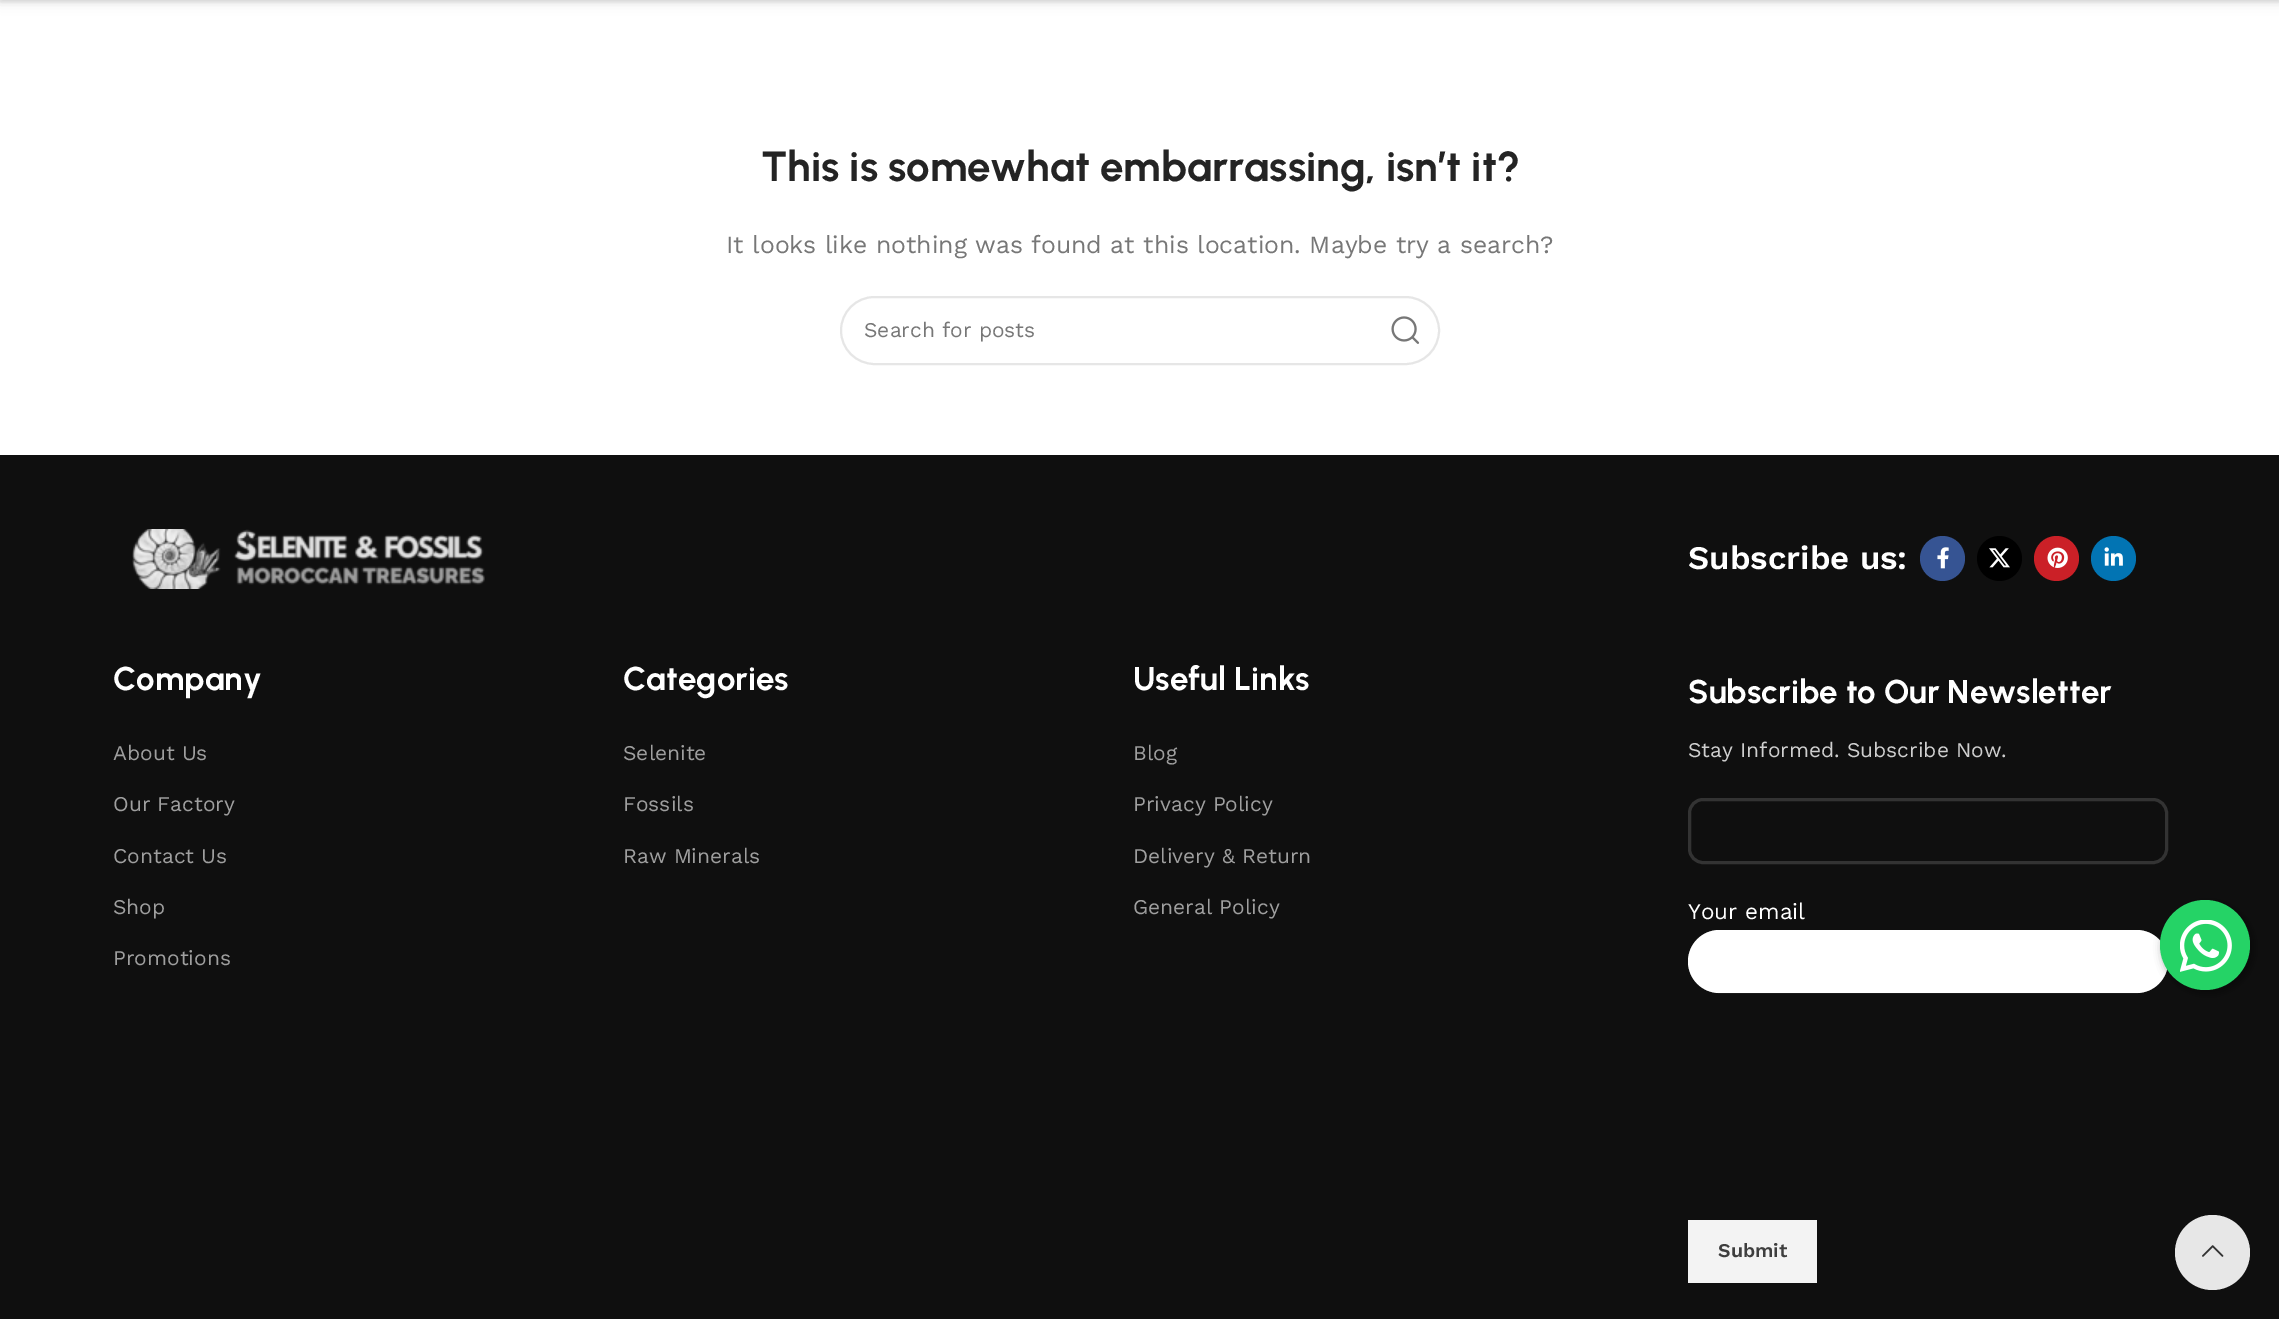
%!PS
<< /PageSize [2279 1319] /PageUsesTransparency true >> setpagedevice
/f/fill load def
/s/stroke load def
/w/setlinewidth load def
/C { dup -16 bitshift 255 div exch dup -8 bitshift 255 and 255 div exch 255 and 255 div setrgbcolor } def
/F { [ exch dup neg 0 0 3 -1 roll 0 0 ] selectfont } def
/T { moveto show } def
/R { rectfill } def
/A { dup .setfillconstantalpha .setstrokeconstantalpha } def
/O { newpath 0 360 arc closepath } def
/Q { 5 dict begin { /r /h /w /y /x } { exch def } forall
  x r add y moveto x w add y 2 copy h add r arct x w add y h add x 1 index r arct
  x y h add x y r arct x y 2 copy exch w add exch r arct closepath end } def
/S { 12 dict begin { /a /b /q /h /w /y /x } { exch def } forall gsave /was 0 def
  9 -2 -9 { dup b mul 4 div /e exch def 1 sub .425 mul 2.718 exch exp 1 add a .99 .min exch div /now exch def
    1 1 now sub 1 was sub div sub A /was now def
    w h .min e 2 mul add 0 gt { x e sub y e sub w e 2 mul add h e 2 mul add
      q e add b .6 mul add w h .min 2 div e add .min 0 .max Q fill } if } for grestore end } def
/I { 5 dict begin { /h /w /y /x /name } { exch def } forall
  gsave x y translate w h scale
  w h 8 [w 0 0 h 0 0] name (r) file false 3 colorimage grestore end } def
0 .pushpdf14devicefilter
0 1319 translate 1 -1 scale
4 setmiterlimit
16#FFFFFF C
0 0 2279 1319 R
16#000000 C
0 -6 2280 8 0 2 .1 S
0 -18 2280 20 0 6 .1 S
/Urbanist-Bold 42 F
16#242424 C
(This is somewhat embarrassing, isn’t it?) 761 181 T
/WorkSans-Regular 24.75 F
16#777777 C
(It looks like nothing was found at this location. Maybe try a search?) 726 253 T
16#E6E6E6 C
2 w
841 297 598 67 33.5 Q s
/WorkSans-Regular 21 F
16#777777 C
(Search for posts) 864 337 T
(1.rgb) 1391 316 29 28 I
16#0F0F0F C
0 455 2279 864 R
(2.rgb) 132 529 353 60 I
/Urbanist-Bold 33 F
16#FFFFFF C
(Company) 113 690 T
/WorkSans-Regular 21 F
16#9F9F9F C
(About Us) 113 760 T
(Our Factory) 113 811 T
(Contact Us) 113 863 T
(Shop) 113 914 T
(Promotions) 113 965 T
/Urbanist-Bold 33 F
16#FFFFFF C
(Categories) 623 690 T
/WorkSans-Regular 21 F
16#9F9F9F C
(Selenite) 623 760 T
(Fossils) 623 811 T
(Raw Minerals) 623 863 T
/Urbanist-Bold 33 F
16#FFFFFF C
(Useful Links) 1133 690 T
/WorkSans-Regular 21 F
16#9F9F9F C
(Blog) 1133 760 T
(Privacy Policy) 1133 811 T
(Delivery & Return) 1133 863 T
(General Policy) 1133 914 T
/WorkSans-SemiBold 33 F
16#FFFFFF C
(Subscribe us:) 1688 569 T
16#365493 C
1942.5 558.5 22.5 O f
(3.rgb) 1937 547 12 22 I
16#000000 C
1999.5 558.5 22.5 O f
(4.rgb) 1989 548 21 20 I
16#CB2027 C
2056.5 558.5 22.5 O f
(5.rgb) 2047 547 21 21 I
16#0274B3 C
2113.5 558.5 22.5 O f
(6.rgb) 2104 547 19 19 I
/Urbanist-Bold 33 F
16#FFFFFF C
(Subscribe to Our Newsletter) 1688 703 T
/WorkSans-Regular 21 F
16#CFCFCF C
(Stay Informed. Subscribe Now.) 1688 757 T
16#333333 C
3 w
1689.5 799.5 477 63 13.5 Q s
/WorkSans-Regular 22.5 F
16#FFFFFF C
(Your email) 1688 919 T
1688 930 480 63 31.5 Q f
0.2 A
2 w
1689 931 478 61 30.5 Q s
1 A
16#F3F3F3 C
1688 1220 129 63 R
/WorkSans-SemiBold 19.5 F
16#3E3E3E C
(Submit) 1718 1257 T
16#000000 C
2163 903 90 90 45 4.5 .4 S
16#25D366 C
2205 945 45 O f
(7.rgb) 2180 920 52 52 I
16#E7E7E7 C
2212.5 1252.5 37.5 O f
(8.rgb) 2202 1245 22 12 I
.poppdf14devicefilter showpage
